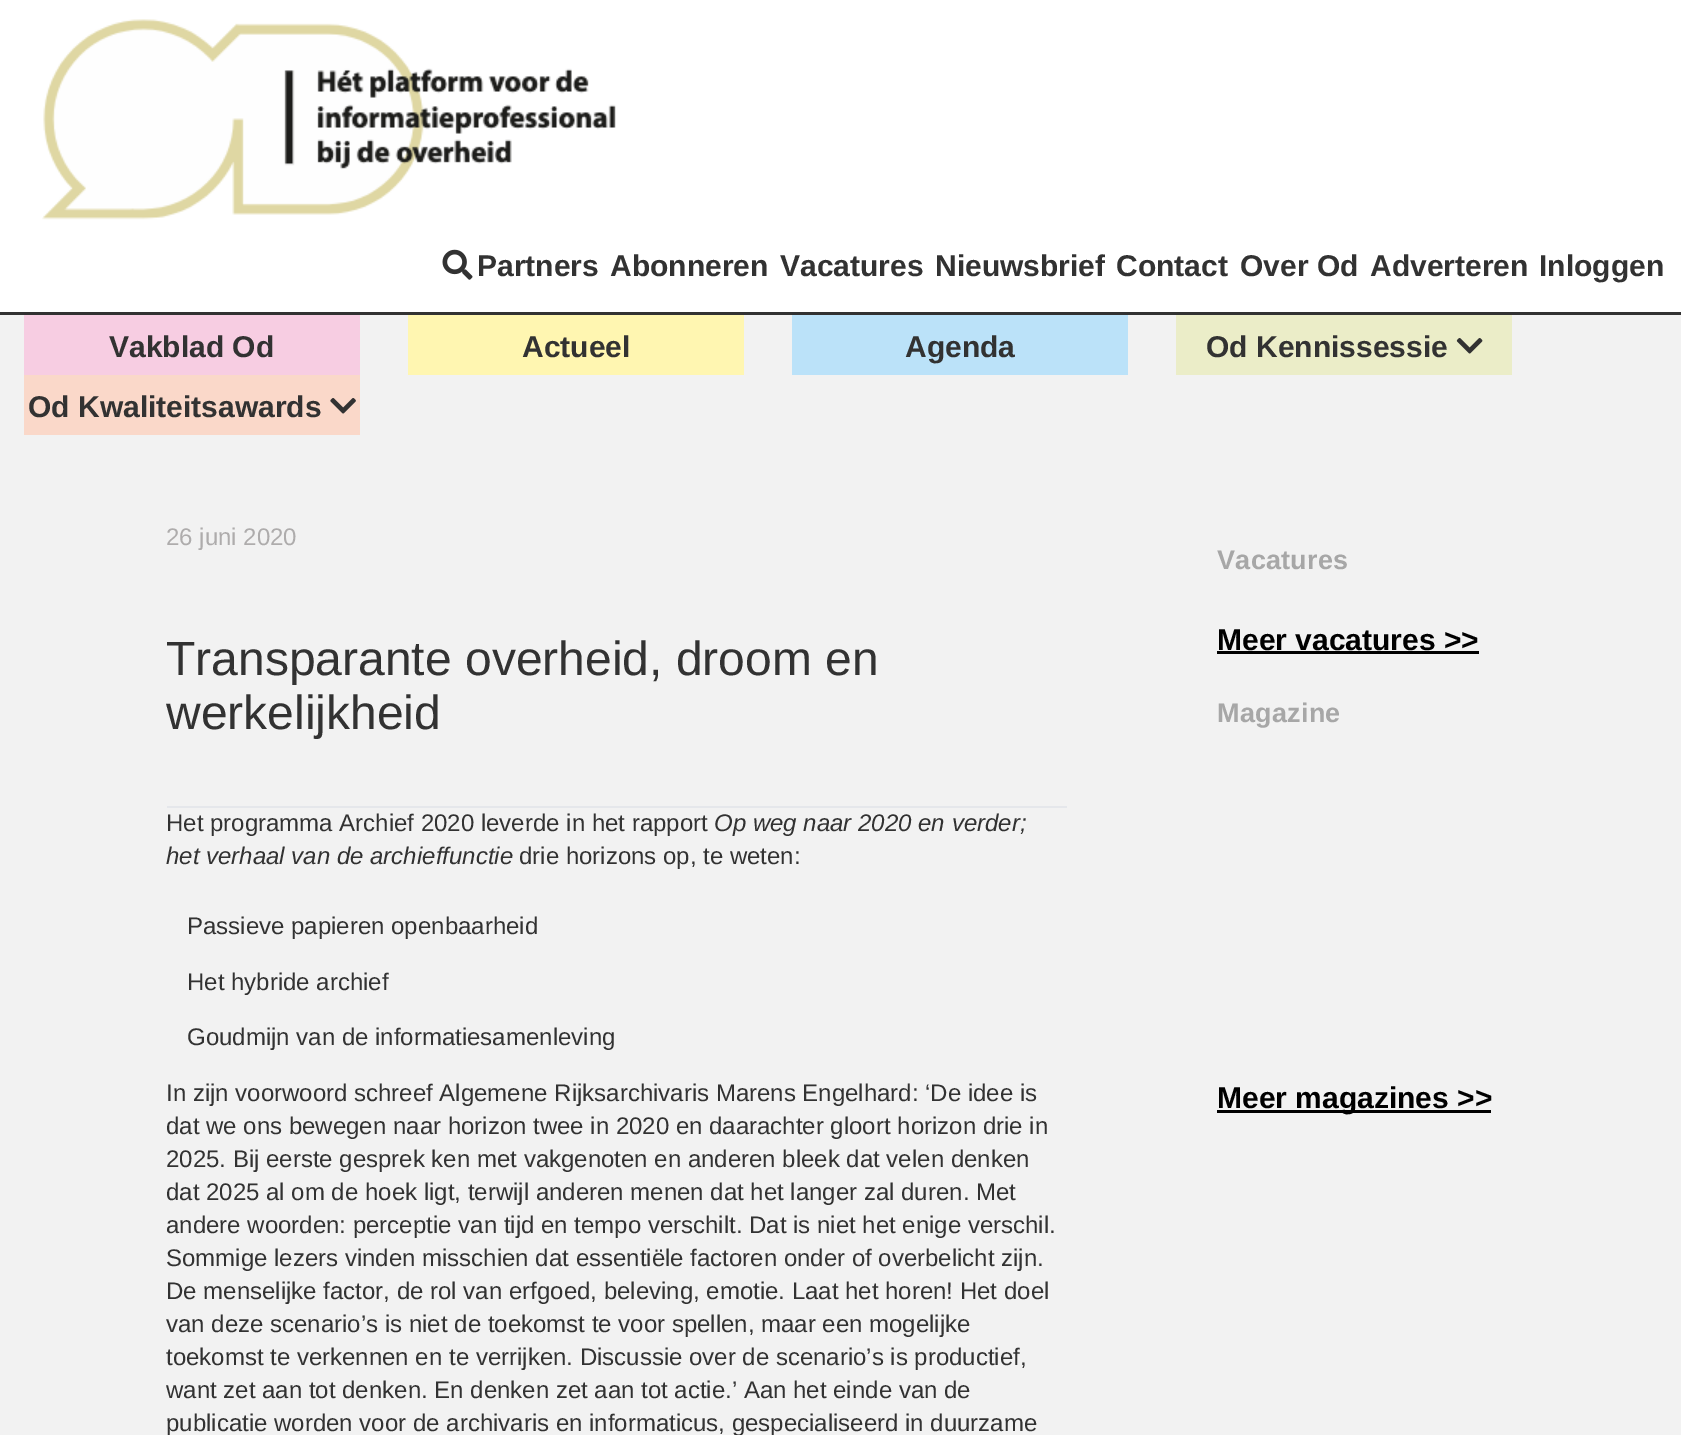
%!PS
<< /PageSize [1681 1435] >> setpagedevice
/m/moveto load def
/C { dup -16 bitshift 255 div exch dup -8 bitshift 255 and 255 div exch 255 and 255 div setrgbcolor } def
/F { [ exch dup neg 0 0 3 -1 roll 0 0 ] selectfont } def
/T { moveto show } def
/R { rectfill } def
/I { 5 dict begin { /h /w /y /x /name } { exch def } forall
  gsave x y translate w h scale
  w h 8 [w 0 0 h 0 0] name (r) file false 3 colorimage grestore end } def
0 1435 translate 1 -1 scale
4 setmiterlimit
16#F2F2F2 C
0 0 1681 1435 R
16#FFFFFF C
0 0 1681 312 R
16#323232 C
0 312 1681 3 R
(1.rgb) 42 19 574 201 I
(2.rgb) 442 249 31 31 I
/LiberationSans-Bold 30 F
(Partners) 477 276 T
(Abonneren) 610 276 T
(Vacatures) 780 276 T
(Nieuwsbrief) 935 276 T
(Contact) 1116 276 T
(Over Od) 1240 276 T
(Adverteren) 1370 276 T
(Inloggen) 1539 276 T
16#F7CDE2 C
24 315 336 60 R
16#323232 C
(Vakblad Od) 109 357 T
16#FFF6B1 C
408 315 336 60 R
16#323232 C
(Actueel) 522 357 T
16#BBE2F9 C
792 315 336 60 R
16#323232 C
(Agenda) 905 357 T
16#EBEDC8 C
1176 315 336 60 R
16#323232 C
(Od Kennissessie) 1206 357 T
(3.rgb) 1456 338 27 16 I
16#FAD8C9 C
24 375 336 60 R
16#323232 C
(Od Kwaliteitsawards) 28 417 T
(4.rgb) 330 398 26 16 I
/LiberationSans-Regular 24 F
16#AEACAC C
(26 juni 2020) 166 545 T
/LiberationSans-Regular 48 F
16#323232 C
(Transparante overheid, droom en) 166 675 T
(werkelijkheid) 166 729 T
16#E5E7EB C
167 806 900 2 R
/LiberationSans-Regular 24 F
16#323232 C
(Het programma Archief 2020 leverde in het rapport) 166 831 T
/LiberationSans-Italic 24 F
(Op weg naar 2020 en verder;) 714 831 T
(het verhaal van de archieffunctie) 166 864 T
/LiberationSans-Regular 24 F
(drie horizons op, te weten:) 519 864 T
(Passieve papieren openbaarheid) 187 934 T
(Het hybride archief) 187 990 T
(Goudmijn van de informatiesamenleving) 187 1045 T
(In zijn voorwoord schreef Algemene Rijksarchivaris Marens Engelhard: ‘De idee is) 166 1101 T
(dat we ons bewegen naar horizon twee in 2020 en daarachter gloort horizon drie in) 166 1134 T
(2025. Bij eerste gesprek ken met vakgenoten en anderen bleek dat velen denken) 166 1167 T
(dat 2025 al om de hoek ligt, terwijl anderen menen dat het langer zal duren. Met) 166 1200 T
(andere woorden: perceptie van tijd en tempo verschilt. Dat is niet het enige verschil.) 166 1233 T
(Sommige lezers vinden misschien dat essentiële factoren onder of overbelicht zijn.) 166 1266 T
(De menselijke factor, de rol van erfgoed, beleving, emotie. Laat het horen! Het doel) 166 1299 T
(van deze scenario’s is niet de toekomst te voor spellen, maar een mogelijke) 166 1332 T
(toekomst te verkennen en te verrijken. Discussie over de scenario’s is productief,) 166 1365 T
(want zet aan tot denken. En denken zet aan tot actie.’ Aan het einde van de) 166 1398 T
(publicatie worden voor de archivaris en informaticus, gespecialiseerd in duurzame) 166 1431 T
/LiberationSans-Bold 27 F
16#A7A7A7 C
1217 569 m .25 0 (Vacatures) ashow
/LiberationSans-Bold 30 F
16#000000 C
(Meer vacatures >>) 1217 650 T
1217 651 262 3 R
/LiberationSans-Bold 27 F
16#A7A7A7 C
1217 722 m .25 0 (Magazine) ashow
16#000000 C
1217 1110 274 3 R
/LiberationSans-Bold 30 F
(Meer magazines >>) 1217 1108 T
showpage
